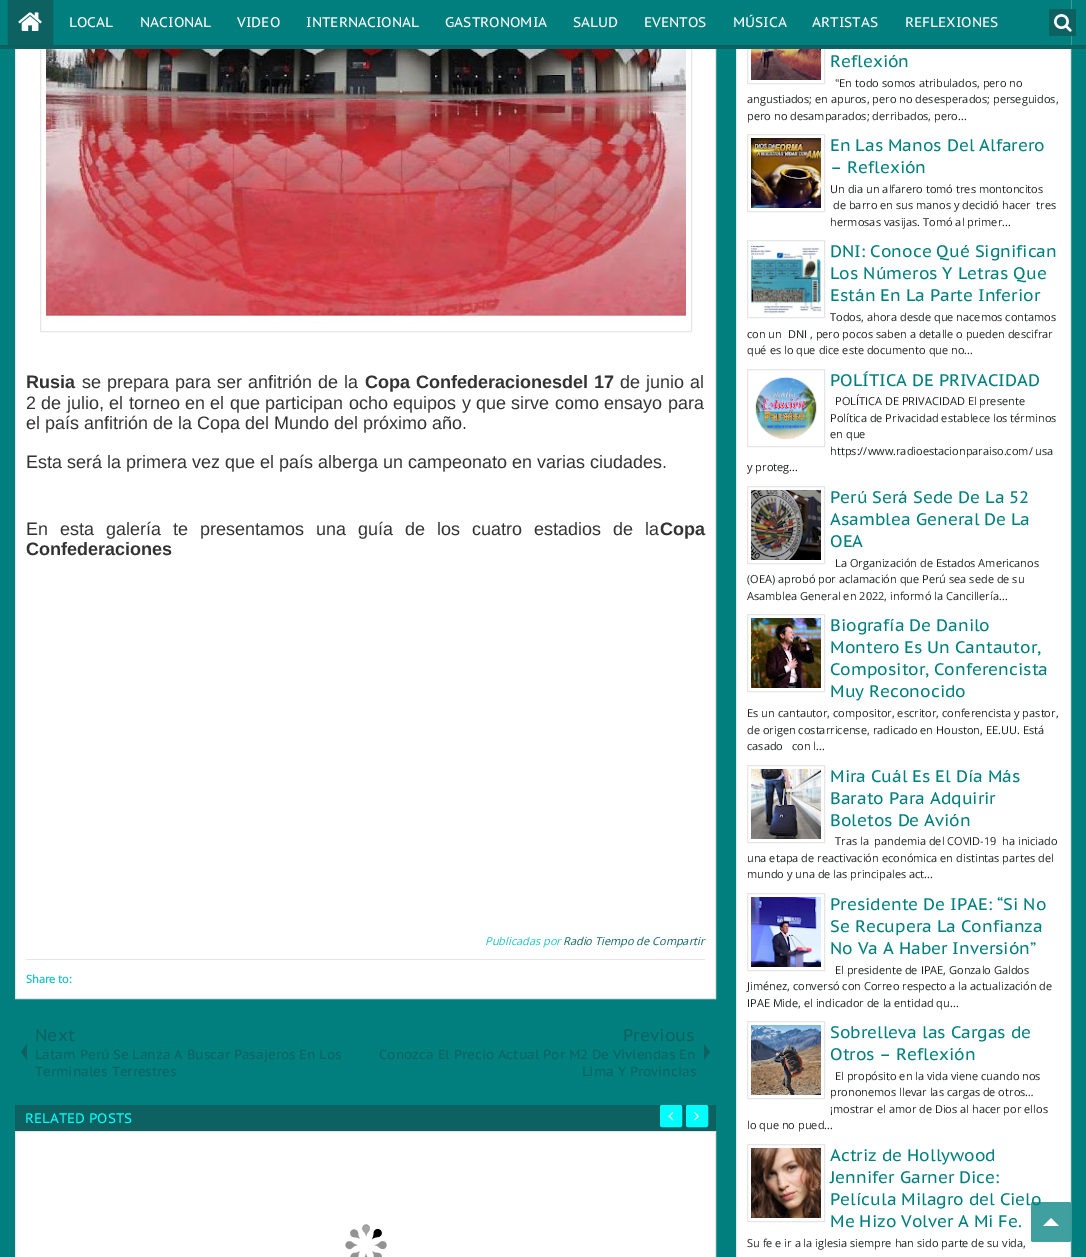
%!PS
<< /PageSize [1086 1257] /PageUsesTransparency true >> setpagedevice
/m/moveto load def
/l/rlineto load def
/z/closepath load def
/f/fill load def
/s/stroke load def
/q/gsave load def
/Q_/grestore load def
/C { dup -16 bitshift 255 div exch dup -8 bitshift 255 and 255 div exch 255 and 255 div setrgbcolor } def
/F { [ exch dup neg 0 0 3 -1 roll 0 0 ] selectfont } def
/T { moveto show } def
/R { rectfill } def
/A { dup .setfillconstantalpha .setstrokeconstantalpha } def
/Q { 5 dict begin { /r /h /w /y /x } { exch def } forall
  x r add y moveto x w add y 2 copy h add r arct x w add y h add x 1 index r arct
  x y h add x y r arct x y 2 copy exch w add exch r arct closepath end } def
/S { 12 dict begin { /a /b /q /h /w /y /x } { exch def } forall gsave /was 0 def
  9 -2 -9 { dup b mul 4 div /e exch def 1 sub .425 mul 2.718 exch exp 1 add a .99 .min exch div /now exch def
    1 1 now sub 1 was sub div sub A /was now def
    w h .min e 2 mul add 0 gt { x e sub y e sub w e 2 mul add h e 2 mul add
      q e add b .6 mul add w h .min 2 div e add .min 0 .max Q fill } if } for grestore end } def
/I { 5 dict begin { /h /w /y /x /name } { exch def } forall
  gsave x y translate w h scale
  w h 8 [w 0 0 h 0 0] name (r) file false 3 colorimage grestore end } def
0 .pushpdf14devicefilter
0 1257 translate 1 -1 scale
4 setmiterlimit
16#007F7F C
0 0 1086 1257 R
16#FFFFFF C
16 49 699 949 R
16#E6E6E6 C
15.5 -.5 700 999 rectstroke
40.5 -.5 651 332 rectstroke
16#FFFFFF C
737 49 333 1208 R
16#E6E6E6 C
736.5 -.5 334 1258 rectstroke
747.5 6.5 77 77 rectstroke
16#007F7F C
15 0 1056 45 R
16#0E6161 C
0 45 1086 4 R
16#000000 C
8 0 45 45 0 .5 .26 S
16#0E6161 C
8 0 45 45 R
(1.rgb) 18 12 24 19 I
/PTSansCaption-Regular 14 F
16#FFFFFF C
(LOCAL) 69 27 T
(NACIONAL) 140 27 T
(VIDEO) 237 27 T
(INTERNACIONAL) 306 27 T
(GASTRONOMIA) 445 27 T
(SALUD) 573 27 T
(EVENTOS) 644 27 T
(MÚSICA) 733 27 T
(ARTISTAS) 812 27 T
(REFLEXIONES) 905 27 T
16#0E6161 C
1049 9 27 27 2 Q f
(2.rgb) 1054 14 18 18 I
(3.rgb) 46 49 640 274 I
/LiberationSans-Bold 18 F
16#333333 C
(Rusia) 26 388 T
/LiberationSans-Regular 18 F
82 388 m 1 0 32 (se prepara para ser anfitrión de la) widthshow
/LiberationSans-Bold 18 F
365 388 m 1 0 32 (Copa Confederaciones) widthshow
562 388 m 1 0 32 (del 17) widthshow
/LiberationSans-Regular 18 F
620 388 m 1 0 32 (de junio al) widthshow
26 409 m .4 0 32 (2 de julio, el torneo en el que participan ocho equipos y que sirve como ensayo para) widthshow
(el país anfitrión de la Copa del Mundo del próximo año.) 26 429 T
(Esta será la primera vez que el país alberga un campeonato en varias ciudades.) 26 468 T
26 535 m 7 0 32 (En esta galería te presentamos una guía de los cuatro estadios de la) widthshow
/LiberationSans-Bold 18 F
(Copa) 660 535 T
(Confederaciones) 26 555 T
/OpenSans-Italic 11 F
16#1DC3C3 C
(Publicadas por) 485 945 T
16#0E6161 C
(Radio Tiempo de Compartir) 563 945 T
16#E6E6E6 C
26 959 679 1 R
/OpenSans-Bold 11 F
16#1DC3C3 C
(Share to:) 26 983 T
/PTSansCaption-Regular 17 F
16#0E6161 C
(Next) 35 1041 T
27 1044 m 0 16 l -6 -8 l z f
/PTSansCaption-Regular 13.2 F
(Latam Perú Se Lanza A Buscar Pasajeros En Los) 35 1059 T
(Terminales Terrestres) 35 1076 T
/PTSansCaption-Regular 17 F
(Previous) 623 1041 T
/PTSansCaption-Regular 13.2 F
(Conozca El Precio Actual Por M2 De Viviendas En) 379 1059 T
(Lima Y Provincias) 582 1076 T
704 1060 m 0 -16 l 6 8 l z f
16#FFFFFF C
15.5 1131.5 m 700 0 l 0 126 l -700 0 l z q f Q_
16#E6E6E6 C
s
16#0E6161 C
15 1105 701 26 R
16#00FFFF C
660.5 1105.5 21 21 1.5 Q q f Q_
s
(4.rgb) 668 1112 6 9 I
686.5 1105.5 21 21 1.5 Q q f Q_
s
(5.rgb) 694 1112 5 9 I
(6.rgb) 345 1224 42 33 I
/PTSansCaption-Regular 13.75 F
(RELATED POSTS) 25 1123 T
(7.rgb) 751 49 70 31 I
/PTSansCaption-Regular 16.75 F
16#007F7F C
(Reflexión) 830 67 T
/OpenSans-Regular 11 F
16#1F2222 C
("En todo somos atribulados, pero no) 835 87 T
(angustiados; en apuros, pero no desesperados; perseguidos,) 747 103 T
(pero no desamparados; derribados, pero...) 747 120 T
16#E6E6E6 C
747.5 134.5 77 77 rectstroke
(8.rgb) 751 138 70 70 I
/PTSansCaption-Regular 16.75 F
16#007F7F C
(En Las Manos Del Alfarero) 830 151 T
(– Reflexión) 830 173 T
/OpenSans-Regular 11 F
16#1F2222 C
(Un dia un alfarero tomó tres montoncitos) 830 193 T
(de barro en sus manos y decidió hacer  tres) 833 209 T
(hermosas vasijas. Tomó al primer...) 830 226 T
16#E6E6E6 C
747.5 240.5 77 77 rectstroke
(9.rgb) 751 245 70 69 I
/PTSansCaption-Regular 16.75 F
16#007F7F C
(DNI: Conoce Qué Significan) 830 257 T
(Los Números Y Letras Que) 830 279 T
(Están En La Parte Inferior) 830 301 T
/OpenSans-Regular 11 F
16#1F2222 C
(Todos, ahora desde que nacemos contamos) 830 321 T
(con un  DNI , pero pocos saben a detalle o pueden descifrar) 747 338 T
(qué es lo que dice este documento que no...) 747 354 T
16#E6E6E6 C
747.5 369.5 77 77 rectstroke
(10.rgb) 755 377 62 63 I
/PTSansCaption-Regular 16.75 F
16#007F7F C
(POLÍTICA DE PRIVACIDAD) 830 386 T
/OpenSans-Regular 11 F
16#1F2222 C
(POLÍTICA DE PRIVACIDAD El presente) 835 405 T
(Política de Privacidad establece los términos) 830 422 T
(en que) 830 438 T
(https://www.radioestacionparaiso.com/ usa) 830 455 T
(y proteg...) 747 471 T
16#E6E6E6 C
747.5 486.5 77 77 rectstroke
(11.rgb) 751 490 70 70 I
/PTSansCaption-Regular 16.75 F
16#007F7F C
(Perú Será Sede De La 52) 830 503 T
(Asamblea General De La) 830 525 T
(OEA) 830 547 T
/OpenSans-Regular 11 F
16#1F2222 C
(La Organización de Estados Americanos) 835 567 T
(\(OEA\) aprobó por aclamación que Perú sea sede de su) 747 583 T
(Asamblea General en 2022, informó la Cancillería...) 747 600 T
16#E6E6E6 C
747.5 614.5 77 77 rectstroke
(12.rgb) 751 618 70 70 I
/PTSansCaption-Regular 16.75 F
16#007F7F C
(Biografía De Danilo) 830 631 T
(Montero Es Un Cantautor,) 830 653 T
(Compositor, Conferencista) 830 675 T
(Muy Reconocido) 830 697 T
/OpenSans-Regular 11 F
16#1F2222 C
(Es un cantautor, compositor, escritor, conferencista y pastor,) 747 717 T
(de origen costarricense, radicado en Houston, EE.UU. Está) 747 734 T
(casado   con l...) 747 750 T
16#E6E6E6 C
747.5 765.5 77 77 rectstroke
(13.rgb) 751 769 70 70 I
/PTSansCaption-Regular 16.75 F
16#007F7F C
(Mira Cuál Es El Día Más) 830 782 T
(Barato Para Adquirir) 830 804 T
(Boletos De Avión) 830 826 T
/OpenSans-Regular 11 F
16#1F2222 C
(Tras la  pandemia del COVID-19  ha iniciado) 835 845 T
(una etapa de reactivación económica en distintas partes del) 747 862 T
(mundo y una de las principales act...) 747 878 T
16#E6E6E6 C
747.5 893.5 77 77 rectstroke
(14.rgb) 751 897 70 70 I
/PTSansCaption-Regular 16.75 F
16#007F7F C
(Presidente De IPAE: “Si No) 830 910 T
(Se Recupera La Confianza) 830 932 T
(No Va A Haber Inversión”) 830 954 T
/OpenSans-Regular 11 F
16#1F2222 C
(El presidente de IPAE, Gonzalo Galdos) 835 974 T
(Jiménez, conversó con Correo respecto a la actualización de) 747 990 T
(IPAE Mide, el indicador de la entidad qu...) 747 1007 T
16#E6E6E6 C
747.5 1021.5 77 77 rectstroke
(15.rgb) 751 1025 70 70 I
/PTSansCaption-Regular 16.75 F
16#007F7F C
(Sobrelleva las Cargas de) 830 1038 T
(Otros – Reflexión) 830 1060 T
/OpenSans-Regular 11 F
16#1F2222 C
(El propósito en la vida viene cuando nos) 835 1080 T
(prononemos llevar las cargas de otros…) 830 1096 T
(¡mostrar el amor de Dios al hacer por ellos) 830 1113 T
(lo que no pued...) 747 1129 T
16#E6E6E6 C
747.5 1144.5 77 77 rectstroke
(16.rgb) 751 1148 70 70 I
/PTSansCaption-Regular 16.75 F
16#007F7F C
(Actriz de Hollywood) 830 1161 T
(Jennifer Garner Dice:) 830 1183 T
(Película Milagro del Cielo) 830 1205 T
(Me Hizo Volver A Mi Fe.) 830 1227 T
/OpenSans-Regular 11 F
16#1F2222 C
(Su fe e ir a la iglesia siempre han sido parte de su vida,) 747 1247 T
0.75 A
16#007F7F C
1031 1202 40 40 2 Q f
1 A
16#FFFFFF C
1059 1226 m -16 0 l 8 -8 l z f
.poppdf14devicefilter showpage
